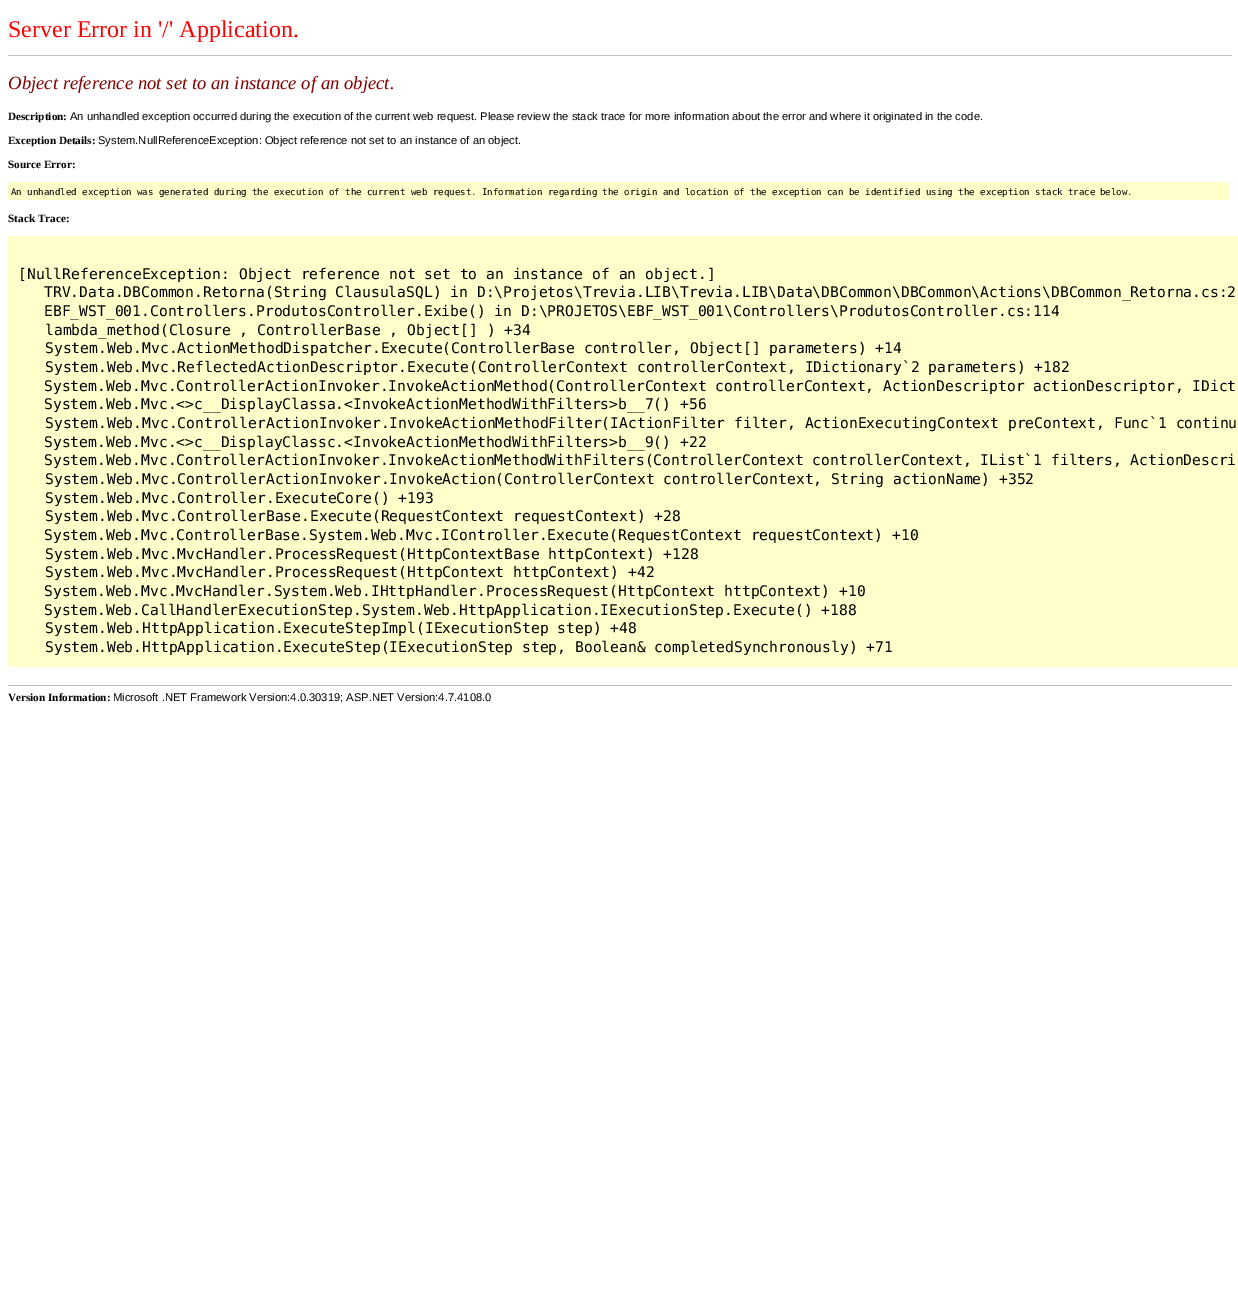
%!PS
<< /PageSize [1238 1295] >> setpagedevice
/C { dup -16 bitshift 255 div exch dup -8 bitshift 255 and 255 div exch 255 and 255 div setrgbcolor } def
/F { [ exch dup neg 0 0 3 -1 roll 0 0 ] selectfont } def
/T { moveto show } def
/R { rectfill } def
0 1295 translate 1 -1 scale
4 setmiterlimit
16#FFFFFF C
0 0 1238 1295 R
/LiberationSerif-Regular 24 F
16#FF0000 C
(Server Error in '/' Application.) 8 37 T
16#C0C0C0 C
8 55 1224 1 R
/LiberationSerif-Italic 18.7 F
16#800000 C
(Object reference not set to an instance of an object.) 8 89 T
/LiberationSerif-Bold 11.2 F
16#000000 C
(Description:) 8 120 T
/LiberationSans-Regular 11.2 F
(An unhandled exception occurred during the execution of the current web request. Please review the stack trace for more information about the error and where it originated in the code.) 70 120 T
/LiberationSerif-Bold 11.2 F
(Exception Details:) 8 144 T
/LiberationSans-Regular 11.2 F
(System.NullReferenceException: Object reference not set to an instance of an object.) 98 144 T
/LiberationSerif-Bold 11.2 F
(Source Error:) 8 168 T
16#FFFFCC C
8 182 1222 18 R
/DejaVuSansMono-Regular 9.1 F
16#000000 C
(An unhandled exception was generated during the execution of the current web request. Information regarding the origin and location of the exception can be identified using the exception stack trace) 11 195 T
(below.) 1100 195 T
/LiberationSerif-Bold 11.2 F
(Stack Trace:) 8 222 T
16#FFFFCC C
8 236 1230 431 R
/DejaVuSansMono-Regular 14.67 F
16#000000 C
([NullReferenceException: Object reference not set to an instance of an object.]) 18 279 T
(TRV.Data.DBCommon.Retorna\(String ClausulaSQL\) in D:\\Projetos\\Trevia.LIB\\Trevia.LIB\\Data\\DBCommon\\DBCommon\\Actions\\DBCommon_Retorna.cs:2) 44 297 T
(EBF_WST_001.Controllers.ProdutosController.Exibe\(\) in D:\\PROJETOS\\EBF_WST_001\\Controllers\\ProdutosController.cs:114) 44 316 T
(lambda_method\(Closure , ControllerBase , Object[] \) +34) 45 335 T
(System.Web.Mvc.ActionMethodDispatcher.Execute\(ControllerBase controller, Object[] parameters\) +14) 45 353 T
(System.Web.Mvc.ReflectedActionDescriptor.Execute\(ControllerContext controllerContext, IDictionary`2 parameters\) +182) 45 372 T
(System.Web.Mvc.ControllerActionInvoker.InvokeActionMethod\(ControllerContext controllerContext, ActionDescriptor actionDescriptor, IDict) 44 391 T
(System.Web.Mvc.<>c__DisplayClassa.<InvokeActionMethodWithFilters>b__7\(\) +56) 44 409 T
(System.Web.Mvc.ControllerActionInvoker.InvokeActionMethodFilter\(IActionFilter filter, ActionExecutingContext preContext, Func`1 continu) 45 428 T
(System.Web.Mvc.<>c__DisplayClassc.<InvokeActionMethodWithFilters>b__9\(\) +22) 44 447 T
(System.Web.Mvc.ControllerActionInvoker.InvokeActionMethodWithFilters\(ControllerContext controllerContext, IList`1 filters, ActionDescri) 44 465 T
(System.Web.Mvc.ControllerActionInvoker.InvokeAction\(ControllerContext controllerContext, String actionName\) +352) 45 484 T
(System.Web.Mvc.Controller.ExecuteCore\(\) +193) 45 503 T
(System.Web.Mvc.ControllerBase.Execute\(RequestContext requestContext\) +28) 45 521 T
(System.Web.Mvc.ControllerBase.System.Web.Mvc.IController.Execute\(RequestContext requestContext\) +10) 44 540 T
(System.Web.Mvc.MvcHandler.ProcessRequest\(HttpContextBase httpContext\) +128) 45 559 T
(System.Web.Mvc.MvcHandler.ProcessRequest\(HttpContext httpContext\) +42) 45 577 T
(System.Web.Mvc.MvcHandler.System.Web.IHttpHandler.ProcessRequest\(HttpContext httpContext\) +10) 44 596 T
(System.Web.CallHandlerExecutionStep.System.Web.HttpApplication.IExecutionStep.Execute\(\) +188) 44 615 T
(System.Web.HttpApplication.ExecuteStepImpl\(IExecutionStep step\) +48) 45 633 T
(System.Web.HttpApplication.ExecuteStep\(IExecutionStep step, Boolean& completedSynchronously\) +71) 45 652 T
16#C0C0C0 C
8 685 1224 1 R
/LiberationSerif-Bold 11.2 F
16#000000 C
(Version Information:) 8 701 T
/LiberationSans-Regular 11.2 F
(Microsoft .NET Framework Version:4.0.30319; ASP.NET Version:4.7.4108.0) 113 701 T
showpage
